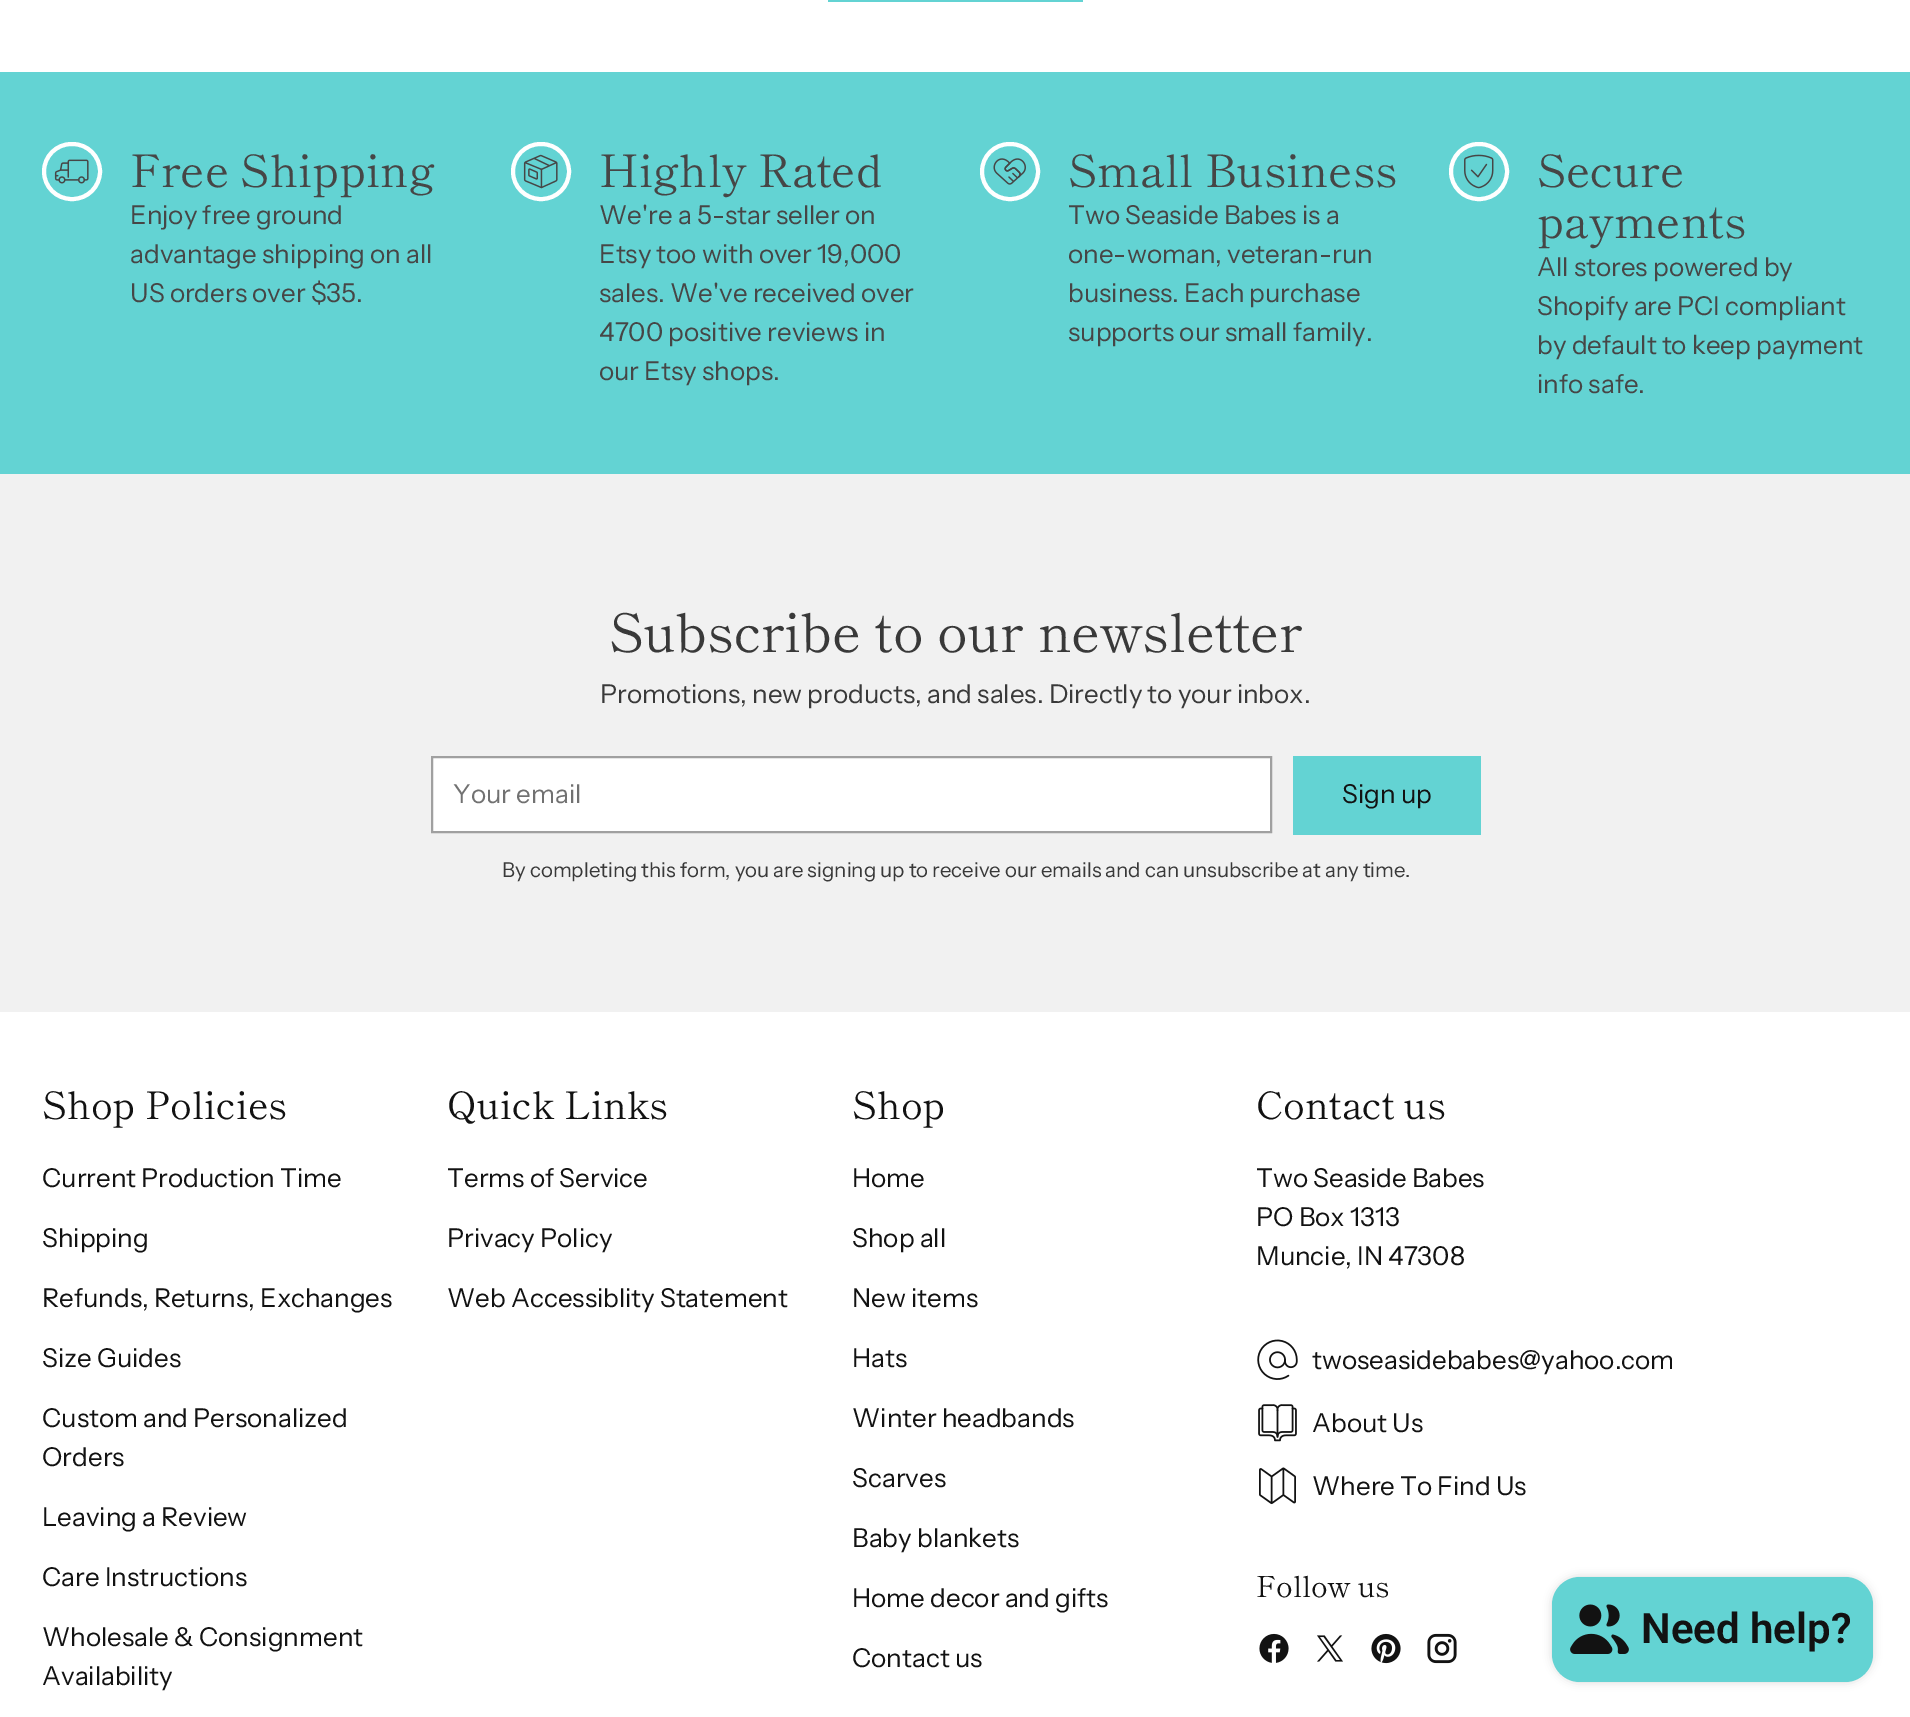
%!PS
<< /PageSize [1910 1717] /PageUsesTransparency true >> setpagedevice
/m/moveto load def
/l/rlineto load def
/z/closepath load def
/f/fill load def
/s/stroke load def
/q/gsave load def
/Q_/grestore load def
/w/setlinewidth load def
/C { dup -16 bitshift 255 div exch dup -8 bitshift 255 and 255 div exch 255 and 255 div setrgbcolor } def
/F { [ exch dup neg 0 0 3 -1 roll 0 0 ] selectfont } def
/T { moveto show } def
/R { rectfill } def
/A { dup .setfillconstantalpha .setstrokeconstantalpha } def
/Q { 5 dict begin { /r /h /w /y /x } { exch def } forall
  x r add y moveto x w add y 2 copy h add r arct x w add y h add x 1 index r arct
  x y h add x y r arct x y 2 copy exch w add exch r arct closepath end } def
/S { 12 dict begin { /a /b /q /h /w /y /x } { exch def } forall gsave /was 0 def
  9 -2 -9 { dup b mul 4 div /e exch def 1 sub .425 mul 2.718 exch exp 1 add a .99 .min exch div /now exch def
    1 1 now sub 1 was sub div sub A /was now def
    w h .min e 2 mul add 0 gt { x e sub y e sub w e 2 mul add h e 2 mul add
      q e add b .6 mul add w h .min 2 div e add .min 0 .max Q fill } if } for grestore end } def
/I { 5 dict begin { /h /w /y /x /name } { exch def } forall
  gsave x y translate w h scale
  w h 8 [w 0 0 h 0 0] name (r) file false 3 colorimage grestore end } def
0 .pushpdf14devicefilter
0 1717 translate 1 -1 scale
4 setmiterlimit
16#FFFFFF C
0 0 1910 1717 R
16#63D3D3 C
828 0 255 2 R
0 72 1910 402 R
16#FFFFFF C
4 w
44 144 56 55 27.5 Q s
(1.rgb) 54 159 35 25 I
/ShipporiMincho-Regular 44.75 F
16#464646 C
(Free Shipping) 130 187 T
/InstrumentSans-Regular 26 F
(Enjoy free ground) 130 224 T
(advantage shipping on all) 130 263 T
(US orders over $35.) 130 302 T
16#FFFFFF C
513 144 56 55 27.5 Q s
(2.rgb) 523 154 35 35 I
/ShipporiMincho-Regular 44.75 F
16#464646 C
(Highly Rated) 599 187 T
/InstrumentSans-Regular 26 F
(We're a 5-star seller on) 599 224 T
(Etsy too with over 19,000) 599 263 T
(sales. We've received over) 599 302 T
(4700 positive reviews in) 599 341 T
(our Etsy shops.) 599 380 T
16#FFFFFF C
982 144 56 55 27.5 Q s
(3.rgb) 993 158 33 27 I
/ShipporiMincho-Regular 44.75 F
16#464646 C
(Small Business) 1068 187 T
/InstrumentSans-Regular 26 F
(Two Seaside Babes is a) 1068 224 T
(one-woman, veteran-run) 1068 263 T
(business. Each purchase) 1068 302 T
(supports our small family.) 1068 341 T
16#FFFFFF C
1451 144 56 55 27.5 Q s
(4.rgb) 1464 154 30 35 I
/ShipporiMincho-Regular 44.75 F
16#464646 C
(Secure) 1537 187 T
(payments) 1537 238 T
/InstrumentSans-Regular 26 F
(All stores powered by) 1537 276 T
(Shopify are PCI compliant) 1537 315 T
(by default to keep payment) 1537 354 T
(info safe.) 1537 393 T
16#F1F1F1 C
0 474 1910 538 R
/ShipporiMincho-Regular 53.5 F
16#393939 C
(Subscribe to our newsletter) 609 652 T
/InstrumentSans-Regular 26 F
(Promotions, new products, and sales. Directly to your inbox.) 600 703 T
16#FFFFFF C
432 757 m 839 0 l 0 75 l -839 0 l z q f Q_
16#A0A0A0 C
2 w
s
16#717171 C
(Your email) 453 803 T
16#63D3D3 C
1293 756 188 79 R
16#121212 C
(Sign up) 1342 803 T
/InstrumentSans-Regular 20.4 F
16#393939 C
(By completing this form, you are signing up to receive our emails and can unsubscribe at any time.) 502 877 T
/ShipporiMincho-Regular 38 F
16#121212 C
(Shop Policies) 42 1119 T
/InstrumentSans-Regular 26 F
(Current Production Time) 42 1187 T
(Shipping) 42 1247 T
(Refunds, Returns, Exchanges) 42 1307 T
(Size Guides) 42 1367 T
(Custom and Personalized) 42 1427 T
(Orders) 42 1466 T
(Leaving a Review) 42 1526 T
(Care Instructions) 42 1586 T
(Wholesale & Consignment) 42 1646 T
(Availability) 42 1685 T
/ShipporiMincho-Regular 38 F
(Quick Links) 447 1119 T
/InstrumentSans-Regular 26 F
(Terms of Service) 447 1187 T
(Privacy Policy) 447 1247 T
(Web Accessiblity Statement) 447 1307 T
/ShipporiMincho-Regular 38 F
(Shop) 852 1119 T
/InstrumentSans-Regular 26 F
(Home) 852 1187 T
(Shop all) 852 1247 T
(New items) 852 1307 T
(Hats) 852 1367 T
(Winter headbands) 852 1427 T
(Scarves) 852 1487 T
(Baby blankets) 852 1547 T
(Home decor and gifts) 852 1607 T
(Contact us) 852 1667 T
/ShipporiMincho-Regular 38 F
(Contact us) 1256 1119 T
/InstrumentSans-Regular 26 F
(Two Seaside Babes) 1256 1187 T
(PO Box 1313) 1256 1226 T
(Muncie, IN 47308) 1256 1265 T
(5.rgb) 1257 1339 41 41 I
(twoseasidebabes@yahoo.com) 1312 1369 T
(6.rgb) 1258 1404 39 38 I
(About Us) 1312 1432 T
(7.rgb) 1259 1467 37 38 I
(Where To Find Us) 1312 1495 T
/ShipporiMincho-Regular 29 F
(Follow us) 1256 1597 T
(8.rgb) 1259 1633 30 30 I
(9.rgb) 1317 1635 26 27 I
(10.rgb) 1371 1633 30 31 I
(11.rgb) 1427 1633 30 31 I
16#000000 C
1552 1577 321 105 28 4.5 .15 S
16#63D3D3 C
1552 1577 321 105 28 Q f
(12.rgb) 1570 1604 59 50 I
/Roboto-SemiBold 42 F
16#121212 C
(Need help?) 1641 1643 T
.poppdf14devicefilter showpage
